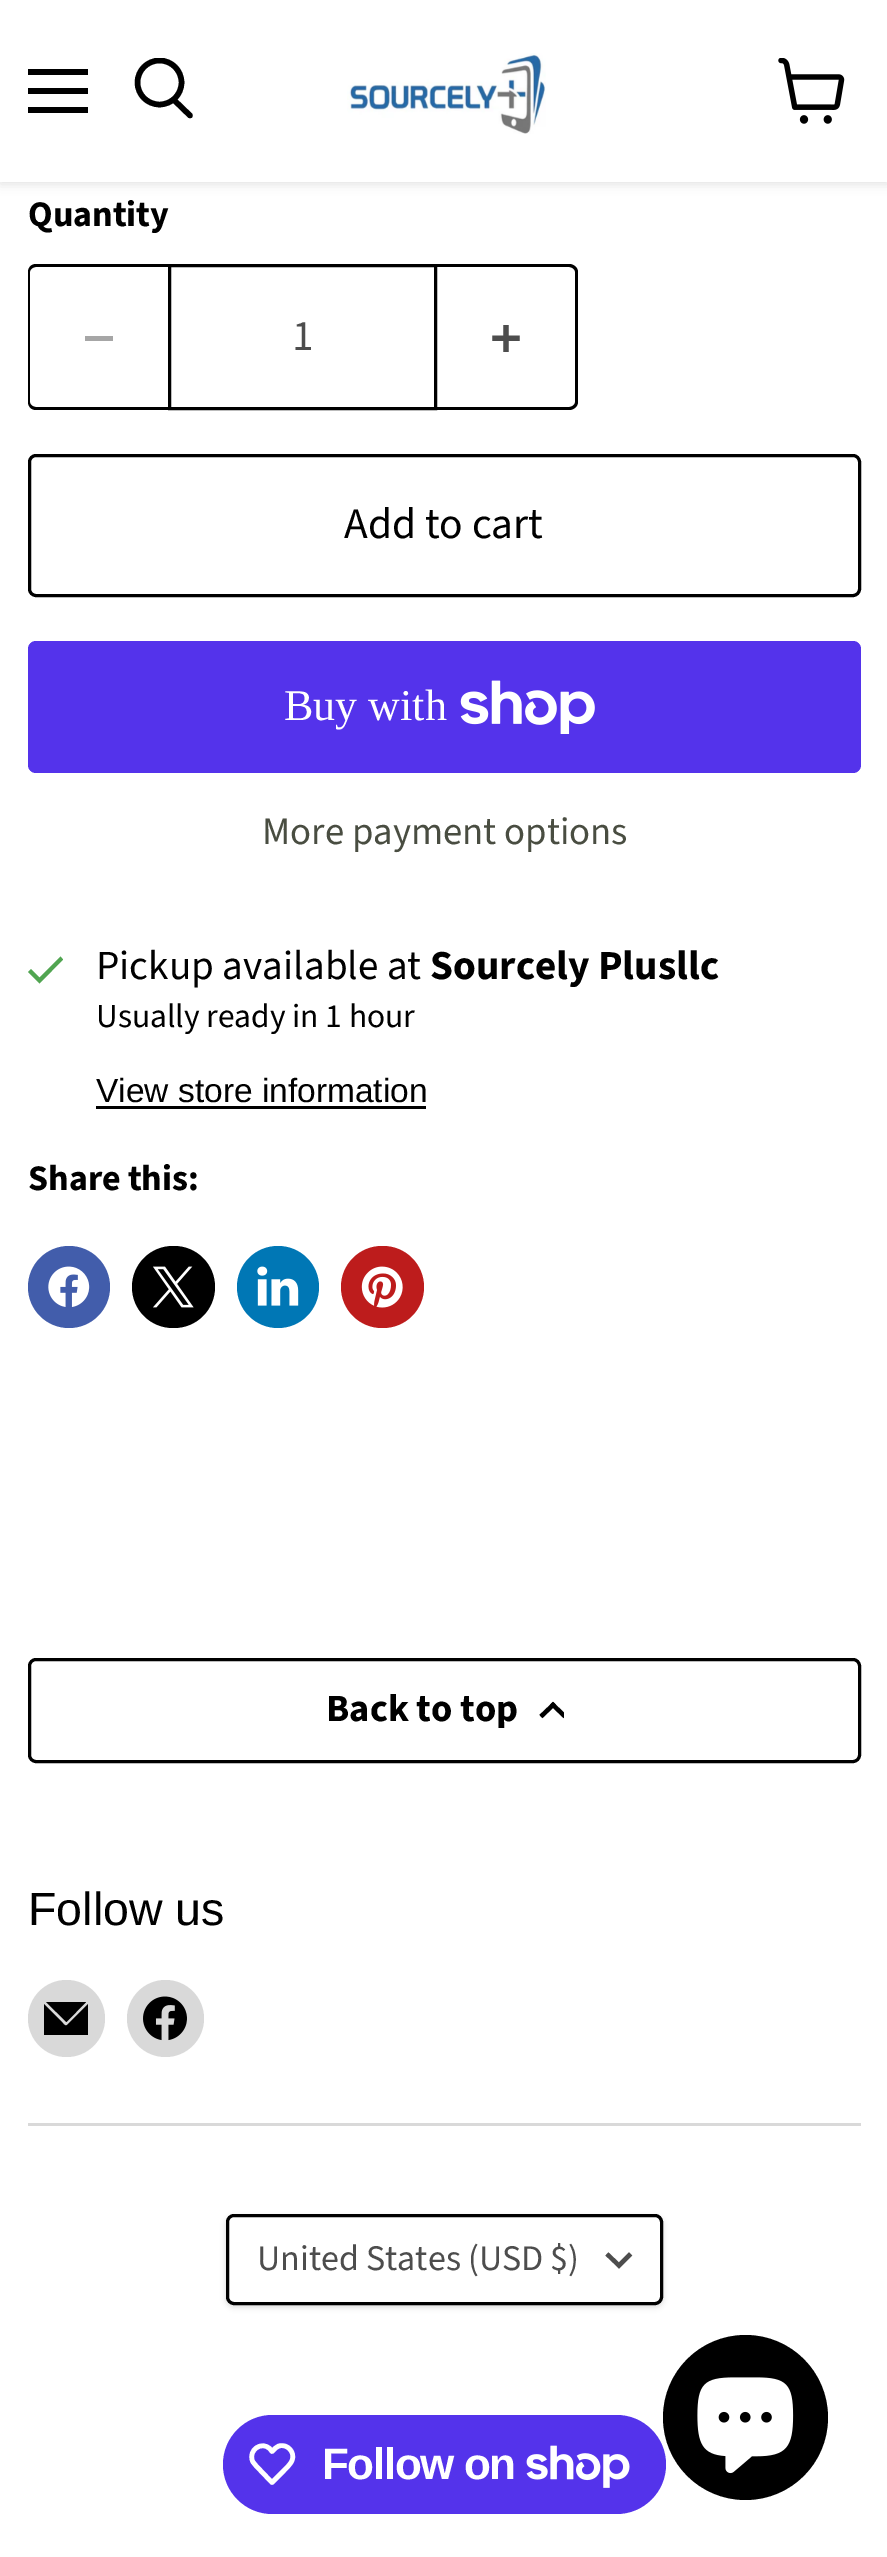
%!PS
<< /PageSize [887 2557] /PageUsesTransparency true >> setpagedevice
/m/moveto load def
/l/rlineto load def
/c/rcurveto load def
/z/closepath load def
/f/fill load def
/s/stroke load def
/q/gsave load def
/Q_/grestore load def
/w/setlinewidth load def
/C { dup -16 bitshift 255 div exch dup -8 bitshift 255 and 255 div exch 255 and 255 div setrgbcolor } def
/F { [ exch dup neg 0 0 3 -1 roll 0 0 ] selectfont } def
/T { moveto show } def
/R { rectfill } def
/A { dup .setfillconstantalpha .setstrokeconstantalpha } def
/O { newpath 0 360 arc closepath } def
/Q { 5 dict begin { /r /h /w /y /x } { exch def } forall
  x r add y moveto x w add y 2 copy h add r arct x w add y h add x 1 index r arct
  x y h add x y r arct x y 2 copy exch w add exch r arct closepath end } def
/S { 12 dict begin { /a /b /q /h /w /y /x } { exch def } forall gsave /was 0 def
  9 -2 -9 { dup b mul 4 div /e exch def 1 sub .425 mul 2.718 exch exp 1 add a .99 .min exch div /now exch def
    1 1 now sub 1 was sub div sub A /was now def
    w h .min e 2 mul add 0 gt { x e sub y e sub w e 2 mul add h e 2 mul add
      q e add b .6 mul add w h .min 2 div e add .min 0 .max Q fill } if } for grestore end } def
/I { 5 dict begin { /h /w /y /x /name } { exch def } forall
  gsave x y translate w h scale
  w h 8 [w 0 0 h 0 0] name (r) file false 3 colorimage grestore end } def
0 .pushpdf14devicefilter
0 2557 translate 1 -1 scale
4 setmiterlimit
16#FFFFFF C
0 0 887 2557 R
16#808080 C
0 3 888 181 0 5.5 .25 S
16#FFFFFF C
0 0 887 182 R
16#000000 C
28 69 60 6 R
28 88 60 6 R
28 107 60 6 R
5.5 w
1 setlinecap
190 115.5 m -15.5 -15 l s
q
132 58 63 66 rectclip
0 setlinecap
159.5 82.5 22 O s
Q_
(1.rgb) 347 53 199 81 I
(2.rgb) 778 58 67 66 I
/SourceSansPro-Bold 36 F
(Quantity) 28 226 T
36 264 m 132 0 l 0 146 l -132 0 l -5 0 -8 -4 -8 -8 c 0 -130 l 0 -4 3 -8 8 -8 c z 36 267 m 132 0 l 0 140 l -132 0 l -3 0 -6 -2 -6 -5 c 0 -130 l 0 -3 3 -5 6 -5 c z eofill
16#A6A6A6 C
85 336 28 5 R
16#000000 C
3 w
0 setlinecap
169.5 265.5 266 143 rectstroke
/SourceSansPro-Regular 43.5 F
16#4D4D4D C
(1) 292 350 T
16#000000 C
437 264 m 132 0 l 5 0 9 4 9 8 c 0 130 l 0 4 -4 8 -9 8 c -132 0 l z 437 267 m 132 0 l 3 0 6 2 6 5 c 0 130 l 0 3 -3 5 -6 5 c -132 0 l z eofill
(3.rgb) 492 325 28 27 I
29.5 455.5 830 140 6.5 Q s
(Add to cart) 344 538 T
16#5433EB C
28 641 833 132 8 Q f
/LiberationSerif-Regular 44 F
16#FFFFFF C
(Buy with) 284 720 T
(4.rgb) 460 680 135 54 I
/SourceSansPro-Regular 38.75 F
16#494D41 C
(More payment options) 262 844 T
16#51A551 C
39.5 980.5 m -1.5 1.5 l 1.5 1.5 l 1.5 -1.5 l z 28 972 m 10 10 l 3 -3 l -10 -10 l z 41 982 m 22 -22.5 l -2.5 -3 l -22.5 22.5 l z f
/SourceSansPro-Regular 41.25 F
16#000000 C
(Pickup available at) 96 979 T
/SourceSansPro-Bold 41.25 F
(Sourcely Plusllc) 430 979 T
/SourceSansPro-Regular 33.5 F
(Usually ready in 1 hour) 96 1027 T
/LiberationSans-Regular 33.5 F
(View store information) 96 1102 T
96 1106 330 3 R
/SourceSansPro-Bold 36 F
(Share this:) 28 1190 T
16#425DAB C
69 1287 41 O f
(5.rgb) 48 1266 42 41 I
16#000000 C
132 1246 83 82 41 Q f
(6.rgb) 153 1266 41 42 I
16#0077B5 C
278 1287 41 O f
(7.rgb) 257 1266 42 40 I
16#BD1C1C C
341 1246 83 82 41 Q f
(8.rgb) 361 1266 42 42 I
16#000000 C
29.5 1659.5 830 102 6.5 Q s
/SourceSansPro-Bold 38.5 F
(Back to top) 326 1721 T
4.3 w
2 setlinecap
553 1705 m -10.5 10 l s
q
536 1700 28 22 rectclip
553 1705 m 10.5 10 l s
Q_
16#D9D9D9 C
28 2123 833 3 R
/Arimo-Regular 46.5 F
16#000000 C
(Follow us) 28 1925 T
16#D9D9D9 C
66.5 2018.5 38.5 O f
16#000000 C
67 2025 m -2 2 -5 -3 -5 -3 c -18 -18 l 0 31 l 44 0 l 0 -31 l z f
86 2002 m -40 0 l 20.5 20 l z f
16#D9D9D9 C
165.5 2018.5 38.5 O f
(9.rgb) 143 1996 44 45 I
16#000000 C
226 2217 437 90 8 3 .15 S
16#FFFFFF C
227.5 2215.5 434 88 6.5 Q q f Q_
16#000000 C
3 w
0 setlinecap
s
/SourceSansPro-Regular 36 F
16#4D4D4D C
(United States \(USD $\)) 257 2270 T
4.3 w
2 setlinecap
619 2265.5 m 10 -10 l 619 2265.5 m -10.5 -10 l s
16#5433EB C
223 2415 443 99 49.5 Q f
16#FFFFFF C
4.6 w
0 setlinecap
1 setlinejoin
270 2449 m 2 2.5 l 2.5 -2.5 4 -4.5 7 -5.5 c 8.5 -2.5 16.5 6.5 13 14.5 c -1.5 4 -5.5 7 -8 10 c -12 12 l -11.5 -12 l -2.5 -3 -6.5 -6 -8 -9.5 c -4.5 -11 9.5 -20.5 17.5 -12 c z s
/LiberationSans-Bold 44 F
322 2479 m -1.4 0 (Follow on) ashow
(10.rgb) 526 2445 104 43 I
16#000000 C
745.5 2417.5 82.5 O f
(11.rgb) 697 2377 97 97 I
.poppdf14devicefilter showpage
